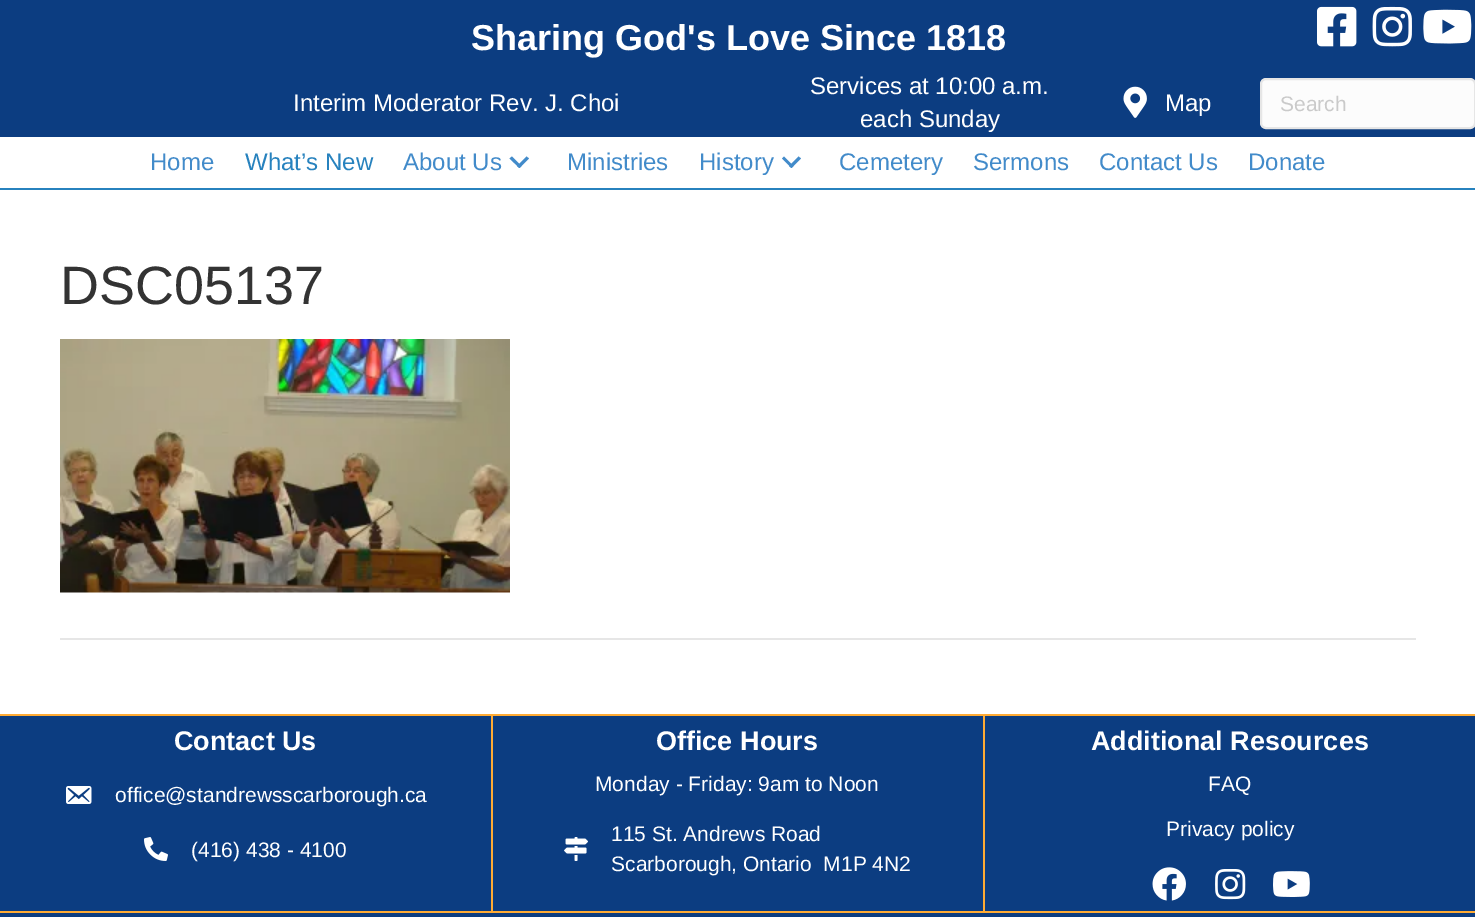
%!PS
<< /PageSize [1475 917] >> setpagedevice
/m/moveto load def
/l/rlineto load def
/z/closepath load def
/f/fill load def
/s/stroke load def
/q/gsave load def
/Q_/grestore load def
/w/setlinewidth load def
/C { dup -16 bitshift 255 div exch dup -8 bitshift 255 and 255 div exch 255 and 255 div setrgbcolor } def
/F { [ exch dup neg 0 0 3 -1 roll 0 0 ] selectfont } def
/T { moveto show } def
/R { rectfill } def
/Q { 5 dict begin { /r /h /w /y /x } { exch def } forall
  x r add y moveto x w add y 2 copy h add r arct x w add y h add x 1 index r arct
  x y h add x y r arct x y 2 copy exch w add exch r arct closepath end } def
/I { 5 dict begin { /h /w /y /x /name } { exch def } forall
  gsave x y translate w h scale
  w h 8 [w 0 0 h 0 0] name (r) file false 3 colorimage grestore end } def
0 917 translate 1 -1 scale
4 setmiterlimit
16#FFFFFF C
0 0 1475 917 R
16#0C3D81 C
0 0 1475 137 R
/LiberationSans-Bold 36 F
16#FFFFFF C
(Sharing God's Love Since 1818) 471 50 T
(1.rgb) 1317 6 40 41 I
(2.rgb) 1372 6 40 41 I
(3.rgb) 1423 9 49 35 I
/LiberationSans-Regular 24 F
(Interim Moderator Rev. J. Choi) 293 111 T
(Services at 10:00 a.m.) 810 94 T
(each Sunday) 860 127 T
(4.rgb) 1123 86 24 32 I
(Map) 1165 111 T
16#FCFCFC C
1261 79 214 49 5 Q q f Q_
16#E6E6E6 C
2 w
s
/LiberationSans-Regular 21 F
16#CACACA C
(Search) 1280 111 T
16#2782BE C
0 188 1475 2 R
/LiberationSans-Regular 24 F
16#428BCA C
(Home) 150 170 T
16#2782BE C
(What’s New) 245 170 T
16#428BCA C
(About Us) 403 170 T
526.5 156.5 m 2.5 2 l -9.5 9.5 l -2.5 -2 l z f
512 156.5 m 9.5 9.5 l -2 2 l -10 -9.5 l z f
(Ministries) 567 170 T
(History) 699 170 T
798.5 156.5 m 2.5 2 l -9.5 9.5 l -2.5 -2 l z f
784 156.5 m 9.5 9.5 l -2 2 l -9.5 -9.5 l z f
(Cemetery) 839 170 T
(Sermons) 973 170 T
(Contact Us) 1099 170 T
(Donate) 1248 170 T
/LiberationSans-Regular 54 F
16#333333 C
(DSC05137) 60 304 T
(5.rgb) 60 339 450 254 I
16#E6E6E6 C
60 638 1356 2 R
16#0C3D81 C
0 716 1475 195 R
16#FFAB34 C
0 714 492 2 R
491 714 2 197 R
/LiberationSans-Bold 27 F
16#FFFFFF C
(Contact Us) 174 750 T
(6.rgb) 66 786 26 18 I
/LiberationSans-Regular 21 F
(office@standrewsscarborough.ca) 115 802 T
(7.rgb) 144 837 24 24 I
(\(416\) 438 - 4100) 191 857 T
16#FFAB34 C
492 714 492 2 R
983 714 2 197 R
/LiberationSans-Bold 27 F
16#FFFFFF C
(Office Hours) 656 750 T
/LiberationSans-Regular 21 F
(Monday - Friday: 9am to Noon) 595 791 T
(8.rgb) 564 837 24 24 I
(115 St. Andrews Road) 611 841 T
(Scarborough, Ontario  M1P 4N2) 611 871 T
16#FFAB34 C
984 714 491 2 R
/LiberationSans-Bold 27 F
16#FFFFFF C
(Additional Resources) 1091 750 T
/LiberationSans-Regular 21 F
(FAQ) 1208 791 T
(Privacy policy) 1166 836 T
(9.rgb) 1152 867 34 34 I
(10.rgb) 1215 869 31 31 I
(11.rgb) 1273 871 37 26 I
16#0C3D81 C
0 913 1475 4 R
16#FFAB34 C
0 911 1475 2 R
showpage
